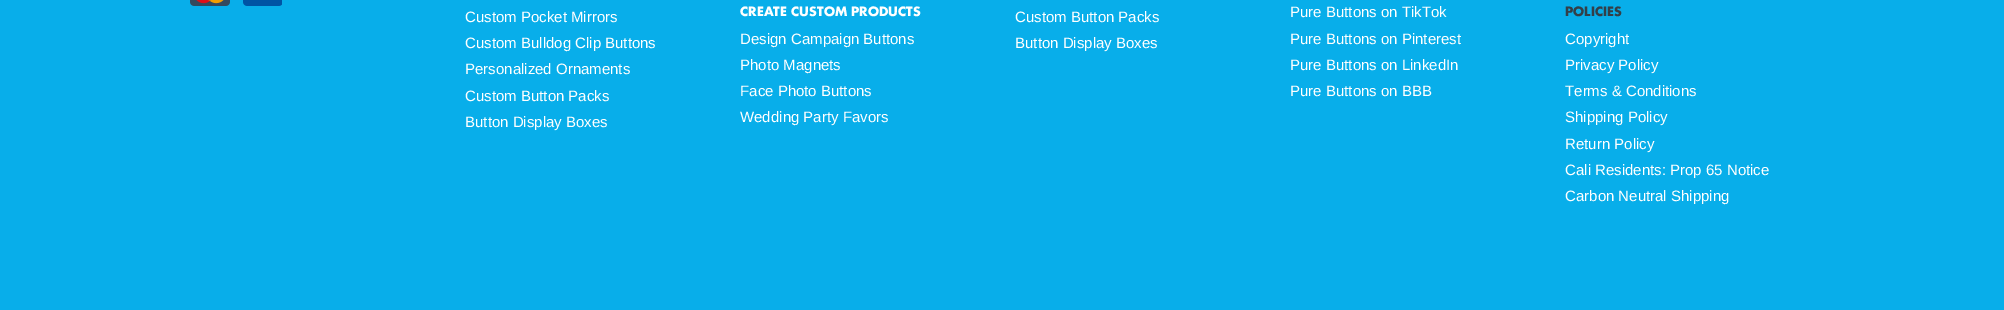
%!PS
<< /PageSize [2004 310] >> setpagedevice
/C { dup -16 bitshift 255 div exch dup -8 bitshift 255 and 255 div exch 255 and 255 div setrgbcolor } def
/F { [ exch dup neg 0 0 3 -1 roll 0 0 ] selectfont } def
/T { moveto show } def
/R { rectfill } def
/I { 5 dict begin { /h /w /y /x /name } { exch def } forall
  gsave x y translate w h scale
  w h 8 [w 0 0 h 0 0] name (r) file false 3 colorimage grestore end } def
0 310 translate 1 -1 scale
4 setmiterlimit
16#08AEEA C
0 0 2004 310 R
(1.rgb) 190 0 40 6 I
(2.rgb) 243 0 39 6 I
/LiberationSans-Regular 15 F
16#FFFFFF C
(Custom Pocket Mirrors) 465 22 T
(Custom Bulldog Clip Buttons) 465 48 T
(Personalized Ornaments) 465 74 T
(Custom Button Packs) 465 101 T
(Button Display Boxes) 465 127 T
/Futura-Bold 12.5 F
(CREATE CUSTOM PRODUCTS) 740 16 T
/LiberationSans-Regular 15 F
(Design Campaign Buttons) 740 44 T
(Photo Magnets) 740 70 T
(Face Photo Buttons) 740 96 T
(Wedding Party Favors) 740 122 T
(Custom Button Packs) 1015 22 T
(Button Display Boxes) 1015 48 T
(Pure Buttons on TikTok) 1290 17 T
(Pure Buttons on Pinterest) 1290 44 T
(Pure Buttons on LinkedIn) 1290 70 T
(Pure Buttons on BBB) 1290 96 T
/Futura-Bold 12.5 F
16#333F48 C
(POLICIES) 1565 16 T
/LiberationSans-Regular 15 F
16#FFFFFF C
(Copyright) 1565 44 T
(Privacy Policy) 1565 70 T
(Terms & Conditions) 1565 96 T
(Shipping Policy) 1565 122 T
(Return Policy) 1565 149 T
(Cali Residents: Prop 65 Notice) 1565 175 T
(Carbon Neutral Shipping) 1565 201 T
showpage
